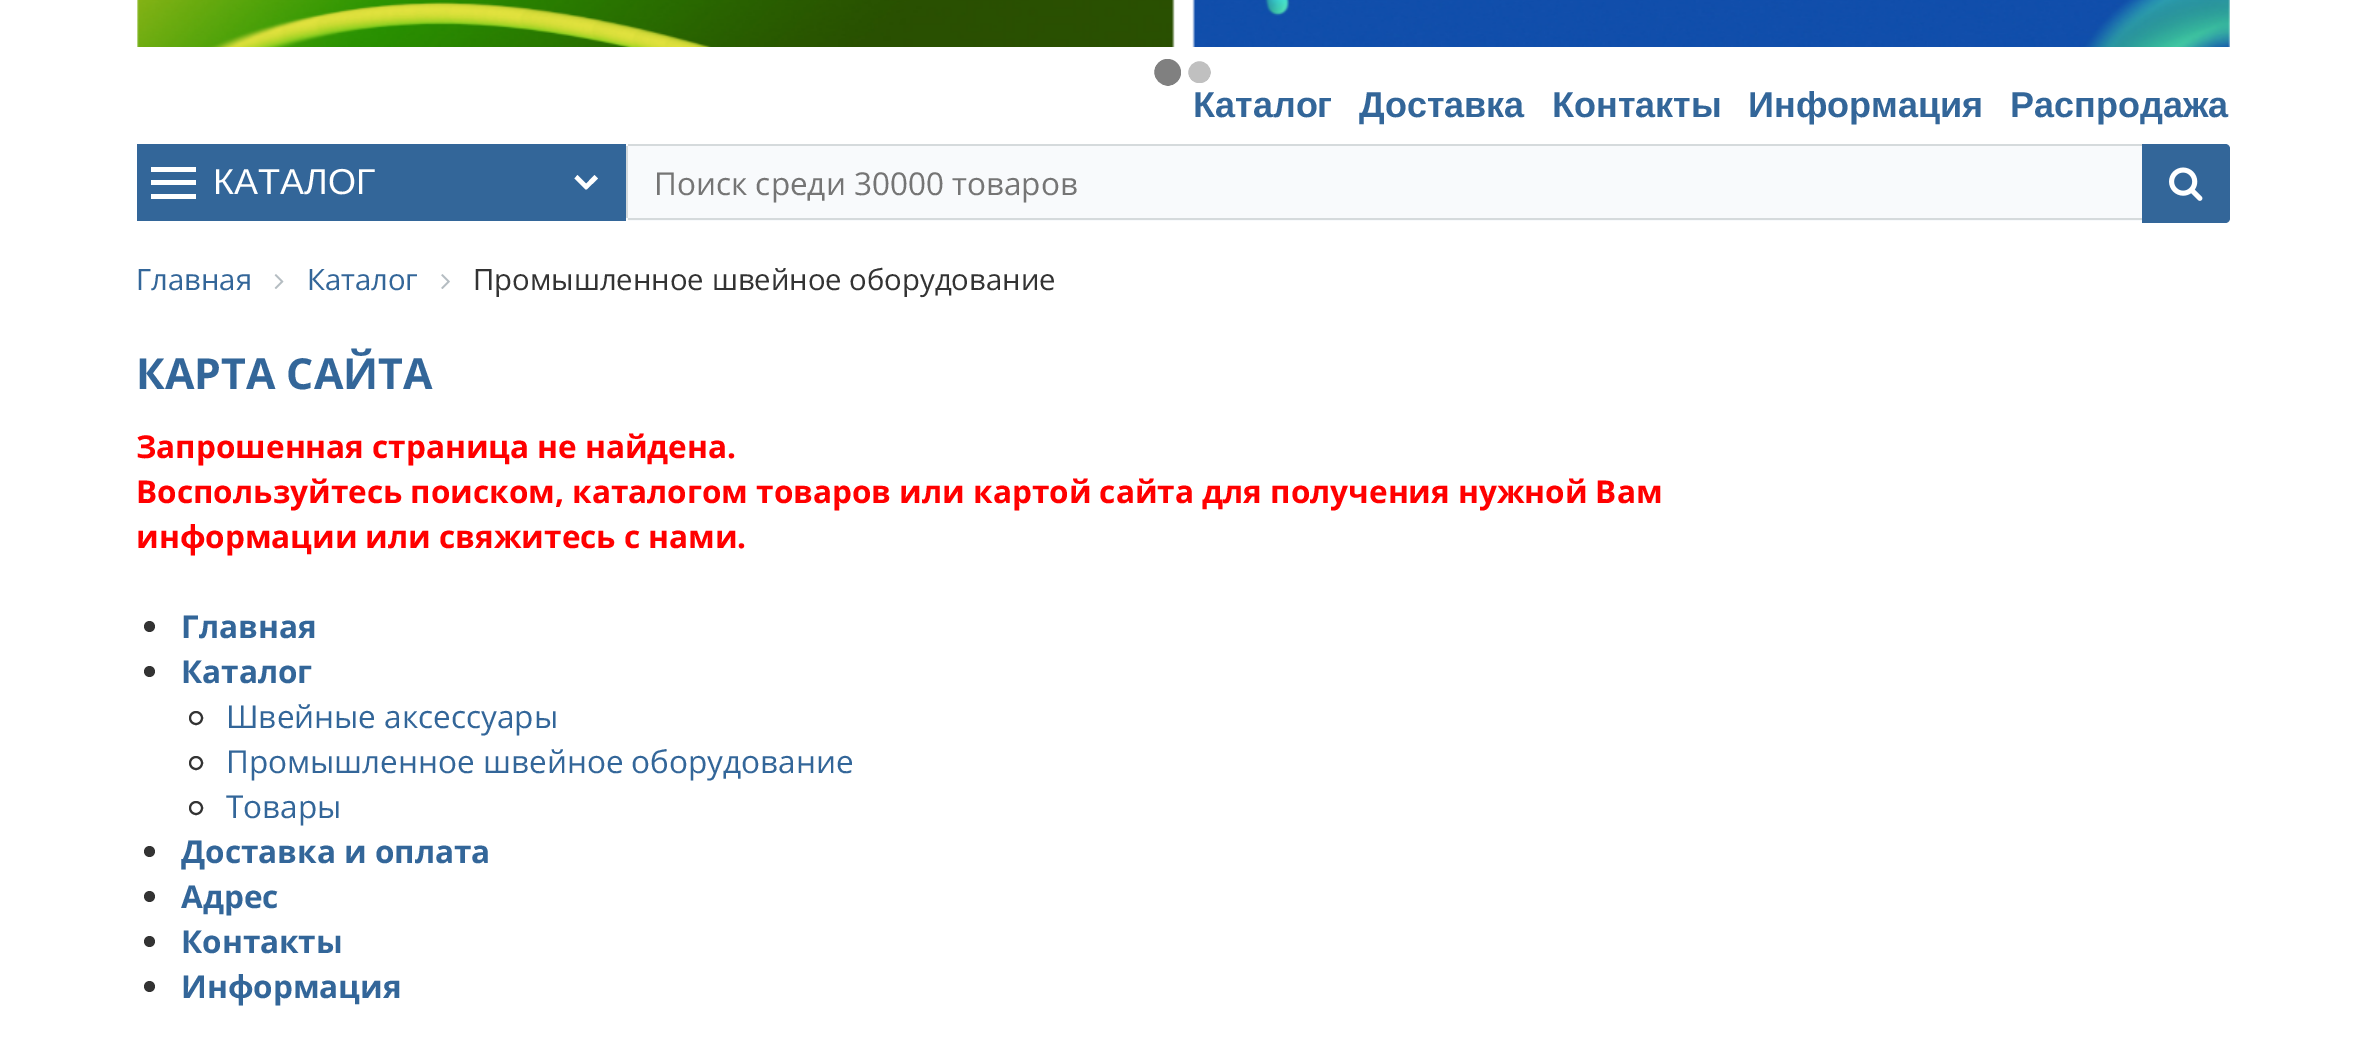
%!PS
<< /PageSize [2364 1037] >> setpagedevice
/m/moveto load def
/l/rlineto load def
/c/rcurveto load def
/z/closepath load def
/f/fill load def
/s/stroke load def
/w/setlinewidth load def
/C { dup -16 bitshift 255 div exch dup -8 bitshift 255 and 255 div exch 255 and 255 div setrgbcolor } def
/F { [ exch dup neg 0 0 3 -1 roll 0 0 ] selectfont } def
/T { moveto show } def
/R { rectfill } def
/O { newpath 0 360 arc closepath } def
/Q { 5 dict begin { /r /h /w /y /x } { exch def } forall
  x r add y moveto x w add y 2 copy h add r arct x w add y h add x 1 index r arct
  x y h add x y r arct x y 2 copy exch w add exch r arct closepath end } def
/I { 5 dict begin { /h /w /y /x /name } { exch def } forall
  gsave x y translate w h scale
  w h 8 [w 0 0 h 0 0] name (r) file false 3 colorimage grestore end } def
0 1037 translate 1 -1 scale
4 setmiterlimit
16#FFFFFF C
0 0 2364 1037 R
(1.rgb) 137 0 2093 47 I
16#808080 C
1167.5 72.5 13.5 O f
16#FFFFFF C
2 w
1168 72 15 O s
16#C0C0C0 C
1188 61 23 22 11 Q f
16#FFFFFF C
1199.5 72.5 12.5 O s
/LiberationSans-Bold 36 F
16#336699 C
(Каталог) 1193 117 T
(Доставка) 1359 117 T
(Контакты) 1552 117 T
(Информация) 1748 117 T
(Распродажа) 2010 117 T
137 144 489 77 R
16#FFFFFF C
151 167 45 5 R
151 194 45 5 R
151 180 45 5 R
/LiberationSans-Regular 36 F
(КАТАЛОГ) 213 194 T
583.5 186.5 m 11 -11.5 l 3.5 3.5 l -11.5 11 l z f
577.5 175 m 11.5 11.5 l -3.5 3 l -11 -11 l z f
16#F8FAFC C
631 144 m 1511 0 l 0 77 l -1511 0 l -3 0 -5 -2 -5 -5 c 0 -67 l 0 -3 2 -5 5 -5 c z f
16#D5DADC C
628 144 1514 2 R
628 218 1514 2 R
626 146 2 72 R
/OpenSans-Regular 31.5 F
16#757575 C
(Поиск среди 30000 товаров) 654 195 T
16#336699 C
2142 144 m 83 0 l 3 0 5 2 5 5 c 0 69 l 0 3 -2 5 -5 5 c -83 0 l z f
(2.rgb) 2169 167 34 34 I
/OpenSans-Regular 29.25 F
(Главная) 136 290 T
(3.rgb) 274 274 10 15 I
(Каталог) 307 290 T
(4.rgb) 441 274 9 15 I
16#333333 C
(Промышленное швейное оборудование) 473 290 T
/OpenSans-Bold 42.75 F
16#336699 C
(КАРТА САЙТА) 136 389 T
/OpenSans-Bold 31.5 F
16#FF0000 C
(Запрошенная страница не найдена.) 136 458 T
(Воспользуйтесь поиском, каталогом товаров или картой сайта для получения нужной Вам) 136 503 T
(информации или свяжитесь с нами.) 136 548 T
16#333333 C
149.5 626.5 5.5 O f
16#336699 C
(Главная) 181 638 T
16#333333 C
149.5 671.5 5.5 O f
16#336699 C
(Каталог) 181 683 T
16#333333 C
196 718 6 O s
/OpenSans-Regular 31.5 F
16#336699 C
(Швейные аксессуары) 226 728 T
16#333333 C
196 763 6 O s
16#336699 C
(Промышленное швейное оборудование) 226 773 T
16#333333 C
196 808 6 O s
16#336699 C
(Товары) 226 818 T
16#333333 C
149.5 851.5 5.5 O f
/OpenSans-Bold 31.5 F
16#336699 C
(Доставка и оплата) 181 863 T
16#333333 C
149.5 896.5 5.5 O f
16#336699 C
(Адрес) 181 908 T
16#333333 C
149.5 941.5 5.5 O f
16#336699 C
(Контакты) 181 953 T
16#333333 C
149.5 986.5 5.5 O f
16#336699 C
(Информация) 181 998 T
showpage
